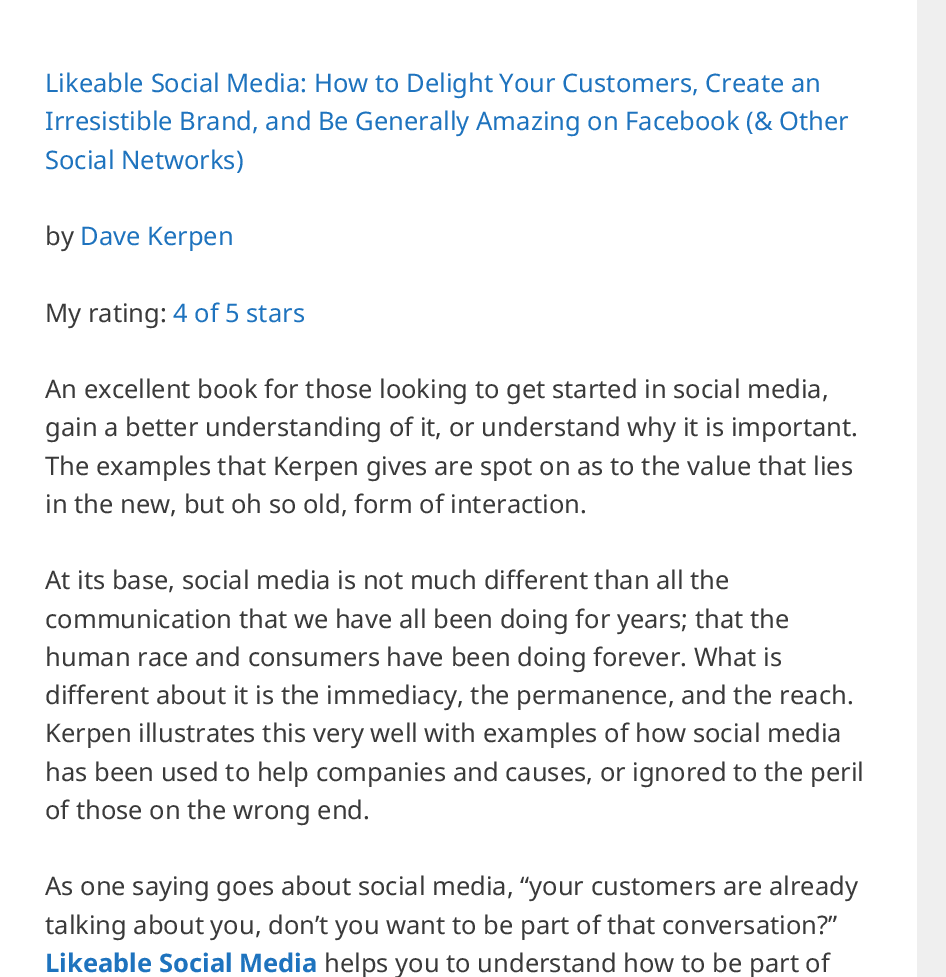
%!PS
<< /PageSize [946 977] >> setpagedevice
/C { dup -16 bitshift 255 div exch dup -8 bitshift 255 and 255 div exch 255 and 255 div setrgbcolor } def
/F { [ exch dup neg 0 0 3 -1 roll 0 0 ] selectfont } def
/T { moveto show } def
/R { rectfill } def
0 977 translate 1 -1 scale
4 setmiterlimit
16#EFEFEF C
0 0 946 977 R
16#FFFFFF C
0 0 917 977 R
/NotoSans-Regular 25.5 F
16#1E73BE C
(Likeable Social Media: How to Delight Your Customers, Create an) 45 92 T
(Irresistible Brand, and Be Generally Amazing on Facebook \(& Other) 45 130 T
(Social Networks\)) 45 169 T
16#3A3A3A C
(by) 45 245 T
16#1E73BE C
(Dave Kerpen) 80 245 T
16#3A3A3A C
(My rating:) 45 322 T
16#1E73BE C
(4 of 5 stars) 173 322 T
16#3A3A3A C
(An excellent book for those looking to get started in social media,) 45 398 T
(gain a better understanding of it, or understand why it is important.) 45 436 T
(The examples that Kerpen gives are spot on as to the value that lies) 45 475 T
(in the new, but oh so old, form of interaction.) 45 513 T
(At its base, social media is not much different than all the) 45 589 T
(communication that we have all been doing for years; that the) 45 628 T
(human race and consumers have been doing forever. What is) 45 666 T
(different about it is the immediacy, the permanence, and the reach.) 45 704 T
(Kerpen illustrates this very well with examples of how social media) 45 742 T
(has been used to help companies and causes, or ignored to the peril) 45 781 T
(of those on the wrong end.) 45 819 T
(As one saying goes about social media, “your customers are already) 45 895 T
(talking about you, don’t you want to be part of that conversation?”) 45 934 T
/NotoSans-Bold 25.5 F
16#1E73BE C
(Likeable Social Media) 45 972 T
/NotoSans-Regular 25.5 F
16#3A3A3A C
(helps you to understand how to be part of) 324 972 T
showpage
